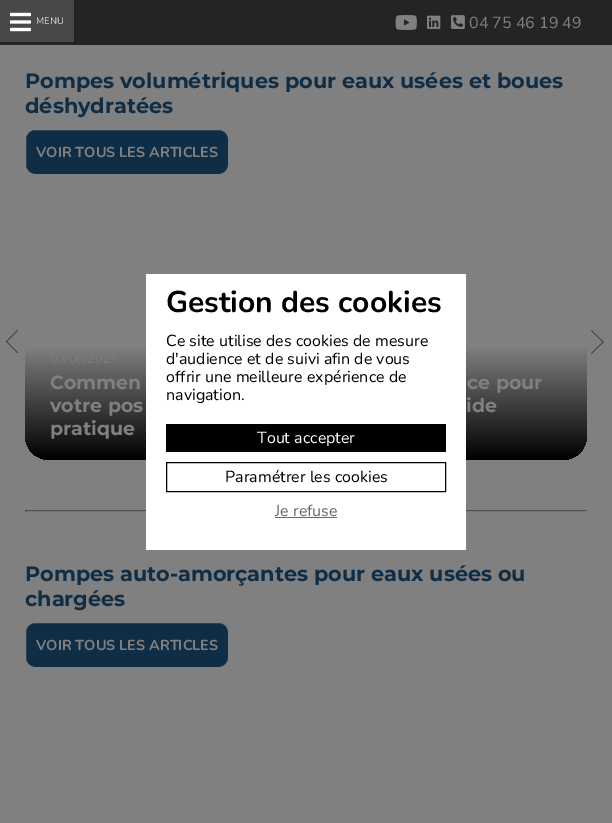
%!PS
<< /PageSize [612 823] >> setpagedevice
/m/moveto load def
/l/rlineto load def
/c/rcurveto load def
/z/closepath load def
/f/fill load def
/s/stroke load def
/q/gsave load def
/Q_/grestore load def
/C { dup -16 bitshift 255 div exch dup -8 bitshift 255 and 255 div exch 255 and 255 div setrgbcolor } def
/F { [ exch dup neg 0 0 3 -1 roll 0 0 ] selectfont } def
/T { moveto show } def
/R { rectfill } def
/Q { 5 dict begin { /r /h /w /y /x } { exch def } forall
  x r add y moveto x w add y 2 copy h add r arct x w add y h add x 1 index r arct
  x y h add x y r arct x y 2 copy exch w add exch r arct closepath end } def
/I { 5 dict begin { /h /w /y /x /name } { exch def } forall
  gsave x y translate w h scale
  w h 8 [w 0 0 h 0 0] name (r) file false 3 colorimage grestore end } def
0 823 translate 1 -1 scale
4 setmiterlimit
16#808080 C
0 0 612 823 R
16#242424 C
0 0 612 45 R
16#484848 C
0 0 74 42 R
(1.rgb) 10 12 21 20 I
/Nunito-Light 9.5 F
16#FFFFFF C
(MENU) 36 24 T
(2.rgb) 395 15 22 15 I
(3.rgb) 427 15 14 14 I
(4.rgb) 451 15 14 14 I
/Nunito-Regular 16 F
16#808080 C
(04 75 46 19 49) 469 28 T
/Montserrat-Bold 20.8 F
16#102D46 C
(Pompes volumétriques pour eaux usées et boues) 25 88 T
(déshydratées) 25 113 T
25.5 129.5 203 45 9.5 Q q f Q_
16#808080 C
s
/Nunito-Bold 14.4 F
(VOIR TOUS LES ARTICLES) 36 157 T
(5.rgb) 5 329 14 25 I
(6.rgb) 591 330 13 24 I
q 25 346 m 562 0 l 0 89 l 0 14 -11 25 -25 25 c -512 0 l -14 0 -25 -11 -25 -25 c z clip newpath
<< /ShadingType 2 /ColorSpace /DeviceRGB /Coords [306 346 306 460] /Extend [true true] /Function << /FunctionType 2 /Domain [0 1] /C0 [.502 .502 .502] /C1 [0 0 0] /N 1 >> >> shfill Q_
/Nunito-Light 12.75 F
(03/06/2025) 50 363 T
/Montserrat-Bold 19 F
(Commen) 50 389 T
(ce pour) 467 389 T
(votre pos) 50 412 T
(ide) 466 412 T
(pratique) 50 435 T
16#505050 C
25 510 562 1 R
16#777777 C
586 510 1 2 R
25 511 562 1 R
16#505050 C
25 510 1 2 R
/Montserrat-Bold 20.8 F
16#102D46 C
(Pompes auto-amorçantes pour eaux usées ou) 25 581 T
(chargées) 25 606 T
25.5 622.5 203 45 9.5 Q q f Q_
16#808080 C
s
/Nunito-Bold 14.4 F
(VOIR TOUS LES ARTICLES) 36 650 T
16#787878 C
17 822 1 1 R
16#FFFFFF C
146 274 320 276 R
/Nunito-Bold 30 F
16#000000 C
(Gestion des cookies) 166 312 T
/Nunito-Regular 16 F
(Ce site utilise des cookies de mesure) 166 346 T
(d'audience et de suivi afin de vous) 166 364 T
(offrir une meilleure expérience de) 166 382 T
(navigation.) 166 400 T
166 424 280 28 R
16#FFFFFF C
(Tout accepter) 257 443 T
16#000000 C
166.5 462.5 279 29 rectstroke
(Paramétrer les cookies) 225 482 T
16#666666 C
(Je refuse) 275 516 T
275 517 62 1 R
showpage
